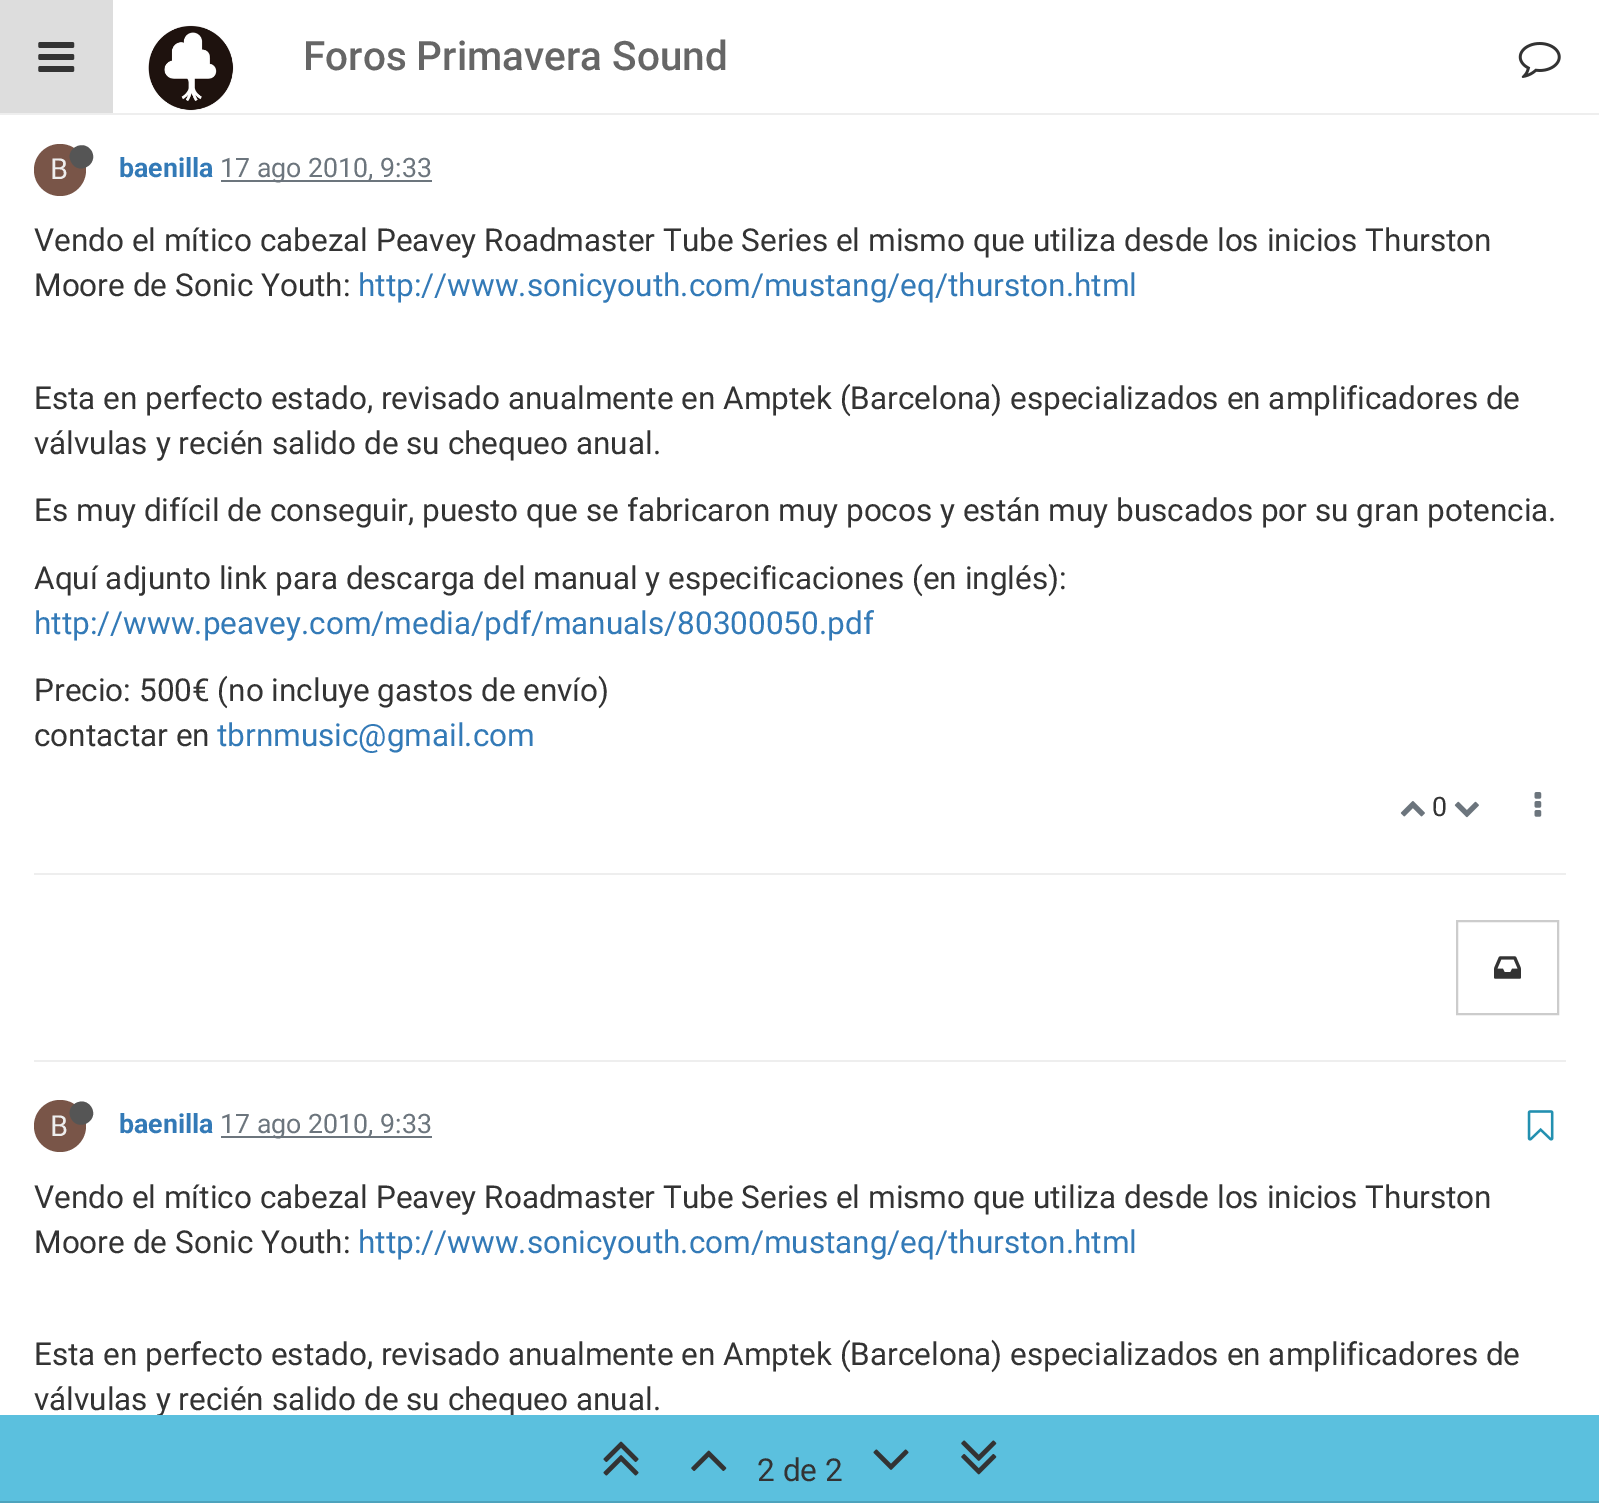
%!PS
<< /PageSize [1599 1503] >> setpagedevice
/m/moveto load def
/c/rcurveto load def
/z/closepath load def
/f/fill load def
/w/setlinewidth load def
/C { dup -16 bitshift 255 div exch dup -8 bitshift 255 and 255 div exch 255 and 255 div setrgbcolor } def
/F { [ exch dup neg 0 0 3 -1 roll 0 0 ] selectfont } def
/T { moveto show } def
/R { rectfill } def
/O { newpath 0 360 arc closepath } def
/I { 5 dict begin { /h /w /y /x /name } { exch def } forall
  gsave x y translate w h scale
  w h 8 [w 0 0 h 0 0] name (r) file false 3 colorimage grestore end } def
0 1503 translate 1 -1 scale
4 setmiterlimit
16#FFFFFF C
0 0 1599 1503 R
16#EEEEEE C
0 113 1599 2 R
16#DDDDDD C
0 0 113 113 R
(1.rgb) 38 42 37 30 I
(2.rgb) 148 25 86 86 I
/Roboto-Medium 40.5 F
16#666666 C
(Foros Primavera Sound) 303 70 T
(3.rgb) 1518 42 43 36 I
16#795548 C
60 170 26 O f
/Roboto-Regular 29 F
16#EEEEEE C
(B) 50 179 T
16#555555 C
91.5 151 m 7.5 13 -12.5 25 -20 11.5 c -8 -13 12 -24.5 20 -11.5 c z f
/Roboto-Bold 26.75 F
16#337AB7 C
(baenilla) 119 177 T
16#6C757D C
221 180 211 2 R
/Roboto-Regular 26.75 F
(17 ago 2010, 9:33) 220 177 T
/Roboto-Regular 31.5 F
16#333333 C
(Vendo el mítico cabezal Peavey Roadmaster Tube Series el mismo que utiliza desde los inicios Thurston) 34 251 T
(Moore de Sonic Youth:) 34 296 T
16#337AB7 C
(http://www.sonicyouth.com/mustang/eq/thurston.html) 358 296 T
16#333333 C
(Esta en perfecto estado, revisado anualmente en Amptek \(Barcelona\) especializados en amplificadores de) 34 409 T
(válvulas y recién salido de su chequeo anual.) 34 454 T
(Es muy difícil de conseguir, puesto que se fabricaron muy pocos y están muy buscados por su gran potencia.) 34 521 T
(Aquí adjunto link para descarga del manual y especificaciones \(en inglés\):) 34 589 T
16#337AB7 C
(http://www.peavey.com/media/pdf/manuals/80300050.pdf) 34 634 T
16#333333 C
(Precio: 500€ \(no incluye gastos de envío\)) 34 701 T
(contactar en) 34 746 T
16#337AB7 C
(tbrnmusic@gmail.com) 217 746 T
(4.rgb) 1400 801 25 16 I
/Roboto-Regular 26.75 F
16#333333 C
(0) 1432 816 T
(5.rgb) 1454 801 25 17 I
(6.rgb) 1534 792 8 25 I
16#EEEEEE C
34 873 1532 2 R
16#CCCCCC C
2 w
1457 921 101 93 rectstroke
(7.rgb) 1494 956 27 23 I
16#EEEEEE C
34 1060 1532 2 R
16#795548 C
60 1126 26 O f
/Roboto-Regular 29 F
16#EEEEEE C
(B) 50 1136 T
16#555555 C
91.5 1107.5 m 7.5 13 -12.5 24.5 -20 11.5 c -8 -13 12 -25 20 -11.5 c z f
/Roboto-Bold 26.75 F
16#337AB7 C
(baenilla) 119 1133 T
16#6C757D C
221 1136 211 2 R
/Roboto-Regular 26.75 F
(17 ago 2010, 9:33) 220 1133 T
(8.rgb) 1527 1110 27 31 I
/Roboto-Regular 31.5 F
16#333333 C
(Vendo el mítico cabezal Peavey Roadmaster Tube Series el mismo que utiliza desde los inicios Thurston) 34 1208 T
(Moore de Sonic Youth:) 34 1253 T
16#337AB7 C
(http://www.sonicyouth.com/mustang/eq/thurston.html) 358 1253 T
16#333333 C
(Esta en perfecto estado, revisado anualmente en Amptek \(Barcelona\) especializados en amplificadores de) 34 1365 T
(válvulas y recién salido de su chequeo anual.) 34 1410 T
16#5BC0DE C
0 1415 1599 86 R
16#4DA3BD C
0 1501 1599 2 R
(9.rgb) 603 1441 36 35 I
(10.rgb) 691 1450 36 21 I
16#333333 C
(2 de 2) 757 1481 T
(11.rgb) 873 1449 36 21 I
(12.rgb) 961 1440 36 35 I
showpage
